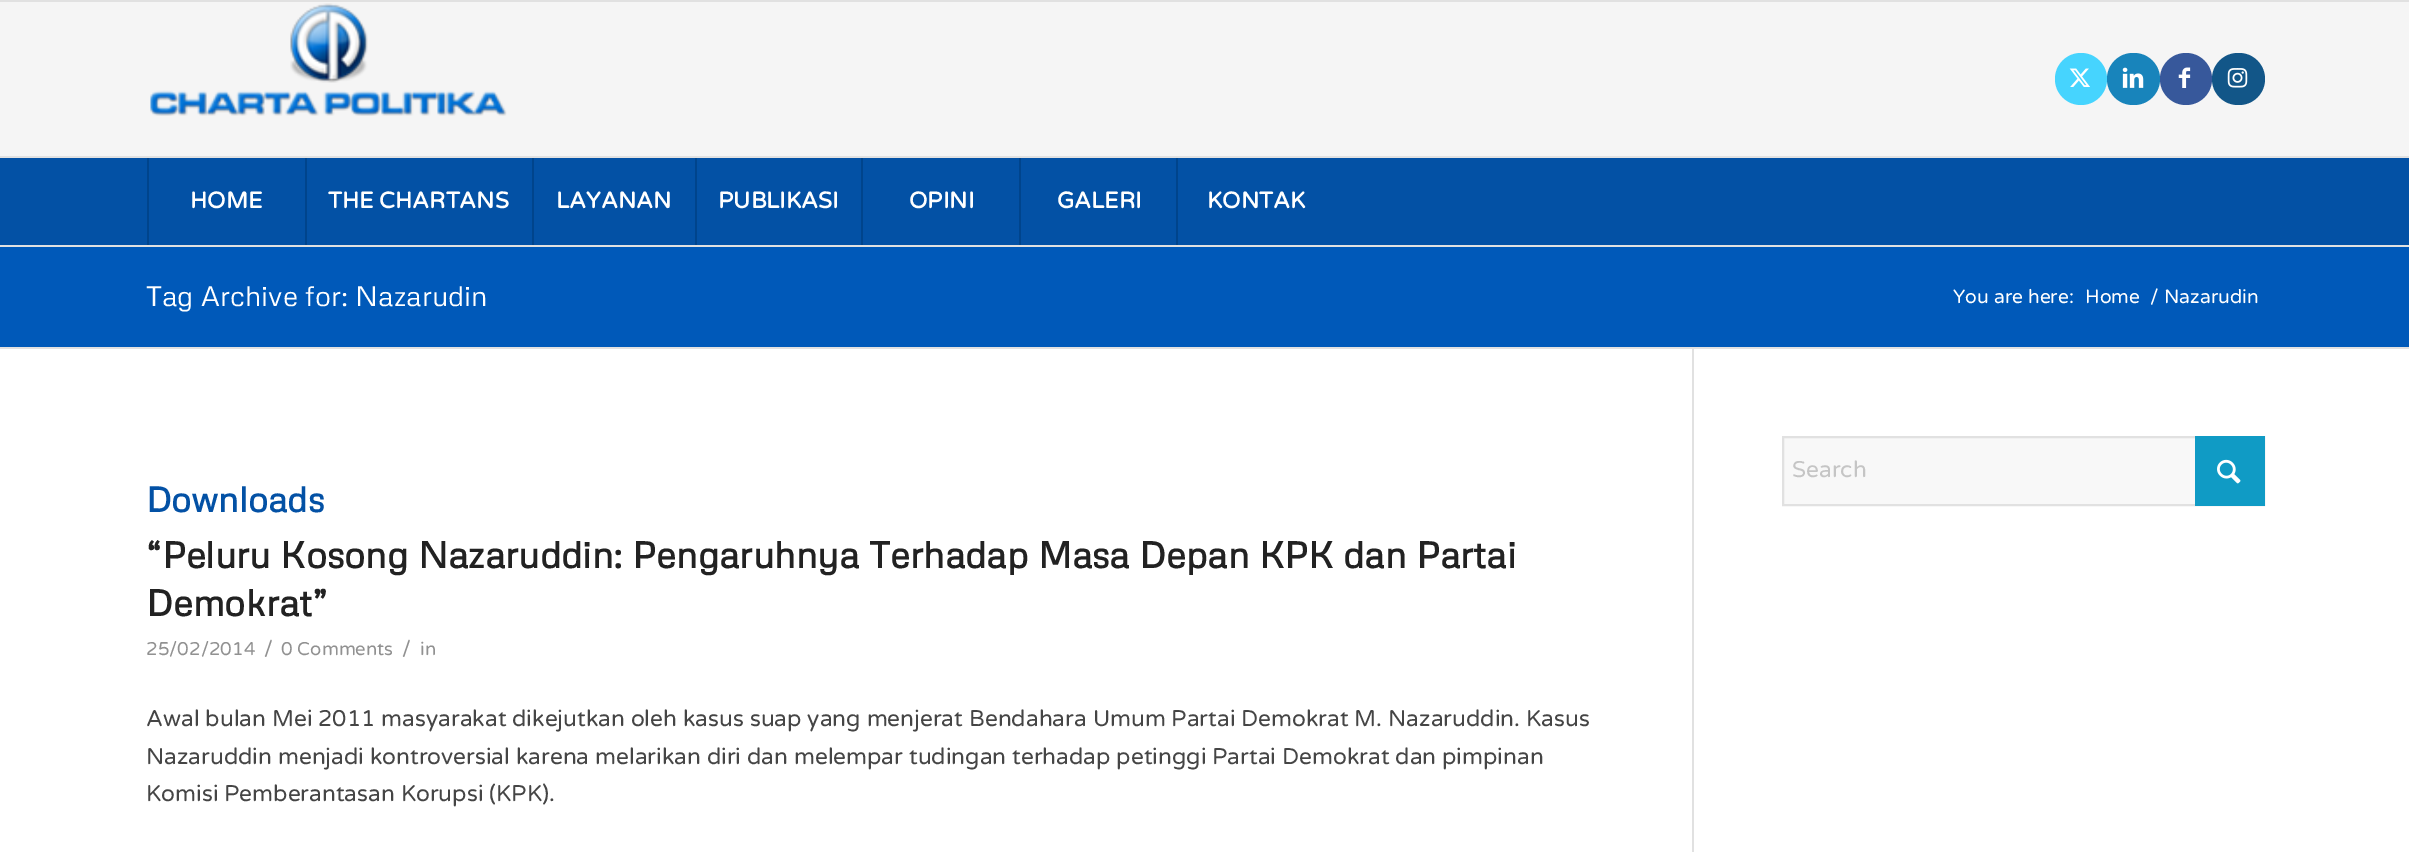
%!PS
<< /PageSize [2409 852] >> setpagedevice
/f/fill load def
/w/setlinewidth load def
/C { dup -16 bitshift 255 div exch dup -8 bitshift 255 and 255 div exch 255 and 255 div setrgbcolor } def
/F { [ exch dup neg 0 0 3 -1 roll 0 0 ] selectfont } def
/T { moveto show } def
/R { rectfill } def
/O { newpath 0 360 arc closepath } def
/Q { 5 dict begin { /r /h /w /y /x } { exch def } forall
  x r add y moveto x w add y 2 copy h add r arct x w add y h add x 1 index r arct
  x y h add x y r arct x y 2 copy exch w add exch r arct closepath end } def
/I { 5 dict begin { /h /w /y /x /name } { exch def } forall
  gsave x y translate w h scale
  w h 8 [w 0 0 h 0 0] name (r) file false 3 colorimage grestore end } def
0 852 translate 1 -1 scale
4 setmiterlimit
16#F5F5F5 C
0 0 2409 852 R
16#E1E1E1 C
0 0 2409 2 R
0 245 2409 2 R
(1.rgb) 150 3 357 113 I
16#46D4FE C
2081 79 26 O f
(2.rgb) 2069 68 21 19 I
16#1884BB C
2107 53 53 52 26 Q f
(3.rgb) 2122 67 22 21 I
16#37589B C
2186 79 26 O f
(4.rgb) 2178 67 13 21 I
16#125688 C
2212 53 53 52 26 Q f
(5.rgb) 2227 68 21 20 I
16#0351A5 C
0 158 2409 87 R
16#E1E1E1 C
0 156 2409 2 R
16#00448C C
147 158 2 87 R
/VarelaRound-Bold 22.75 F
16#FFFFFF C
(HOME) 190 208 T
16#00448C C
305 158 2 87 R
16#FFFFFF C
(THE CHARTANS) 328 208 T
16#00448C C
532 158 2 87 R
16#FFFFFF C
(LAYANAN) 556 208 T
16#00448C C
695 158 2 87 R
16#FFFFFF C
(PUBLIKASI) 718 208 T
16#00448C C
861 158 2 87 R
16#FFFFFF C
(OPINI) 909 208 T
16#00448C C
1019 158 2 87 R
16#FFFFFF C
(GALERI) 1057 208 T
16#00448C C
1176 158 2 87 R
16#FFFFFF C
(KONTAK) 1207 208 T
16#0059B9 C
0 247 2409 100 R
/Metrophobic-Regular 28 F
16#FFFFFF C
(Tag Archive for: Nazarudin) 146 306 T
/VarelaRound-Regular 19.25 F
(You are here:) 1953 303 T
(Home) 2085 303 T
(/) 2150 303 T
(Nazarudin) 2164 303 T
0 349 2409 503 R
16#E1E1E1 C
0 347 2409 2 R
16#F8F8F8 C
1784 438 411 66 R
16#E1E1E1 C
2 w
1783 437 481 68 rectstroke
16#109BC5 C
2195 436 70 70 R
/VarelaRound-Regular 22.75 F
16#C5C5C5 C
(Search) 1792 477 T
(6.rgb) 2217 459 24 25 I
16#E1E1E1 C
1692 348 2 504 R
/Metrophobic-Bold 35 F
16#0351A5 C
(Downloads) 146 512 T
/Metrophobic-Bold 36.75 F
16#222222 C
(“Peluru Kosong Nazaruddin: Pengaruhnya Terhadap Masa Depan KPK dan Partai) 146 568 T
(Demokrat”) 146 616 T
/VarelaRound-Regular 18.5 F
16#919191 C
(25/02/2014) 146 655 T
/VarelaRound-Regular 20 F
(/) 264 655 T
/VarelaRound-Regular 18.5 F
(0 Comments) 281 655 T
/VarelaRound-Regular 20 F
(/) 402 655 T
/VarelaRound-Regular 18.5 F
(in) 420 655 T
/VarelaRound-Regular 22.75 F
16#454545 C
(Awal bulan Mei 2011 masyarakat dikejutkan oleh kasus suap yang menjerat Bendahara Umum Partai Demokrat M. Nazaruddin. Kasus) 146 726 T
(Nazaruddin menjadi kontroversial karena melarikan diri dan melempar tudingan terhadap petinggi Partai Demokrat dan pimpinan) 146 764 T
(Komisi Pemberantasan Korupsi \(KPK\).) 146 801 T
showpage
